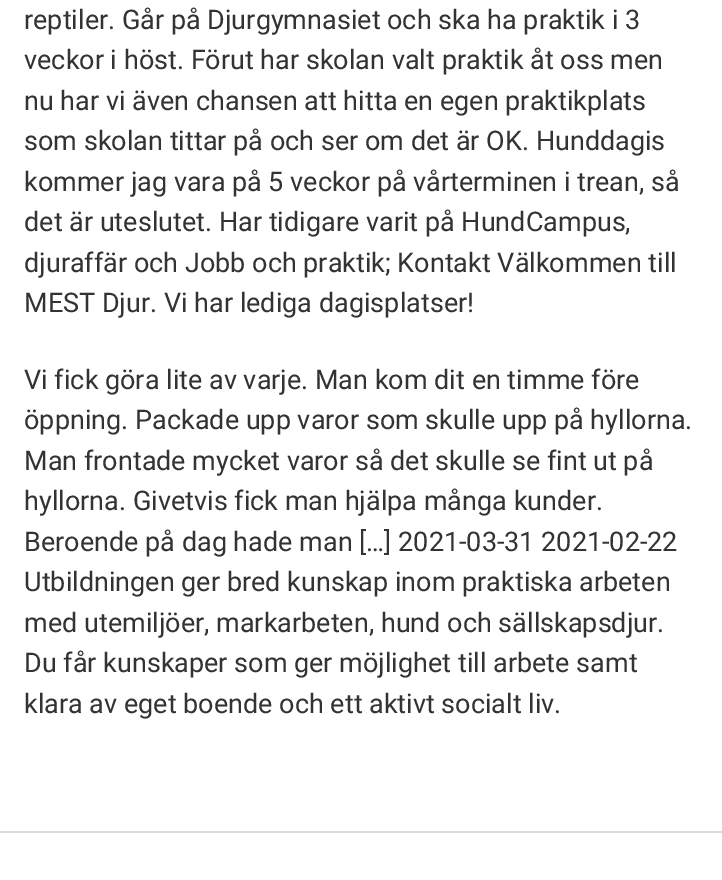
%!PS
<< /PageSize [722 880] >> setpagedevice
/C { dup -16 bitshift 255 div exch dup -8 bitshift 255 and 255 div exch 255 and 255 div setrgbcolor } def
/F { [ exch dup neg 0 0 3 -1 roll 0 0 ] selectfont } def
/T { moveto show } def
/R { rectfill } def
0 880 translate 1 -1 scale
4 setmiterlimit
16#FFFFFF C
0 0 722 880 R
/Roboto-Regular 27 F
16#333333 C
(reptiler. Går på Djurgymnasiet och ska ha praktik i 3) 24 29 T
(veckor i höst. Förut har skolan valt praktik åt oss men) 24 69 T
(nu har vi även chansen att hitta en egen praktikplats) 24 110 T
(som skolan tittar på och ser om det är OK. Hunddagis) 24 150 T
(kommer jag vara på 5 veckor på vårterminen i trean, så) 24 191 T
(det är uteslutet. Har tidigare varit på HundCampus,) 24 231 T
(djuraffär och Jobb och praktik; Kontakt Välkommen till) 24 272 T
(MEST Djur. Vi har lediga dagisplatser!) 24 312 T
(Vi fick göra lite av varje. Man kom dit en timme före) 24 389 T
(öppning. Packade upp varor som skulle upp på hyllorna.) 24 429 T
(Man frontade mycket varor så det skulle se fint ut på) 24 470 T
(hyllorna. Givetvis fick man hjälpa många kunder.) 24 510 T
(Beroende på dag hade man […] 2021-03-31 2021-02-22) 24 551 T
(Utbildningen ger bred kunskap inom praktiska arbeten) 24 591 T
(med utemiljöer, markarbeten, hund och sällskapsdjur.) 24 632 T
(Du får kunskaper som ger möjlighet till arbete samt) 24 672 T
(klara av eget boende och ett aktivt socialt liv.) 24 713 T
16#DBDBDB C
0 831 722 2 R
showpage
